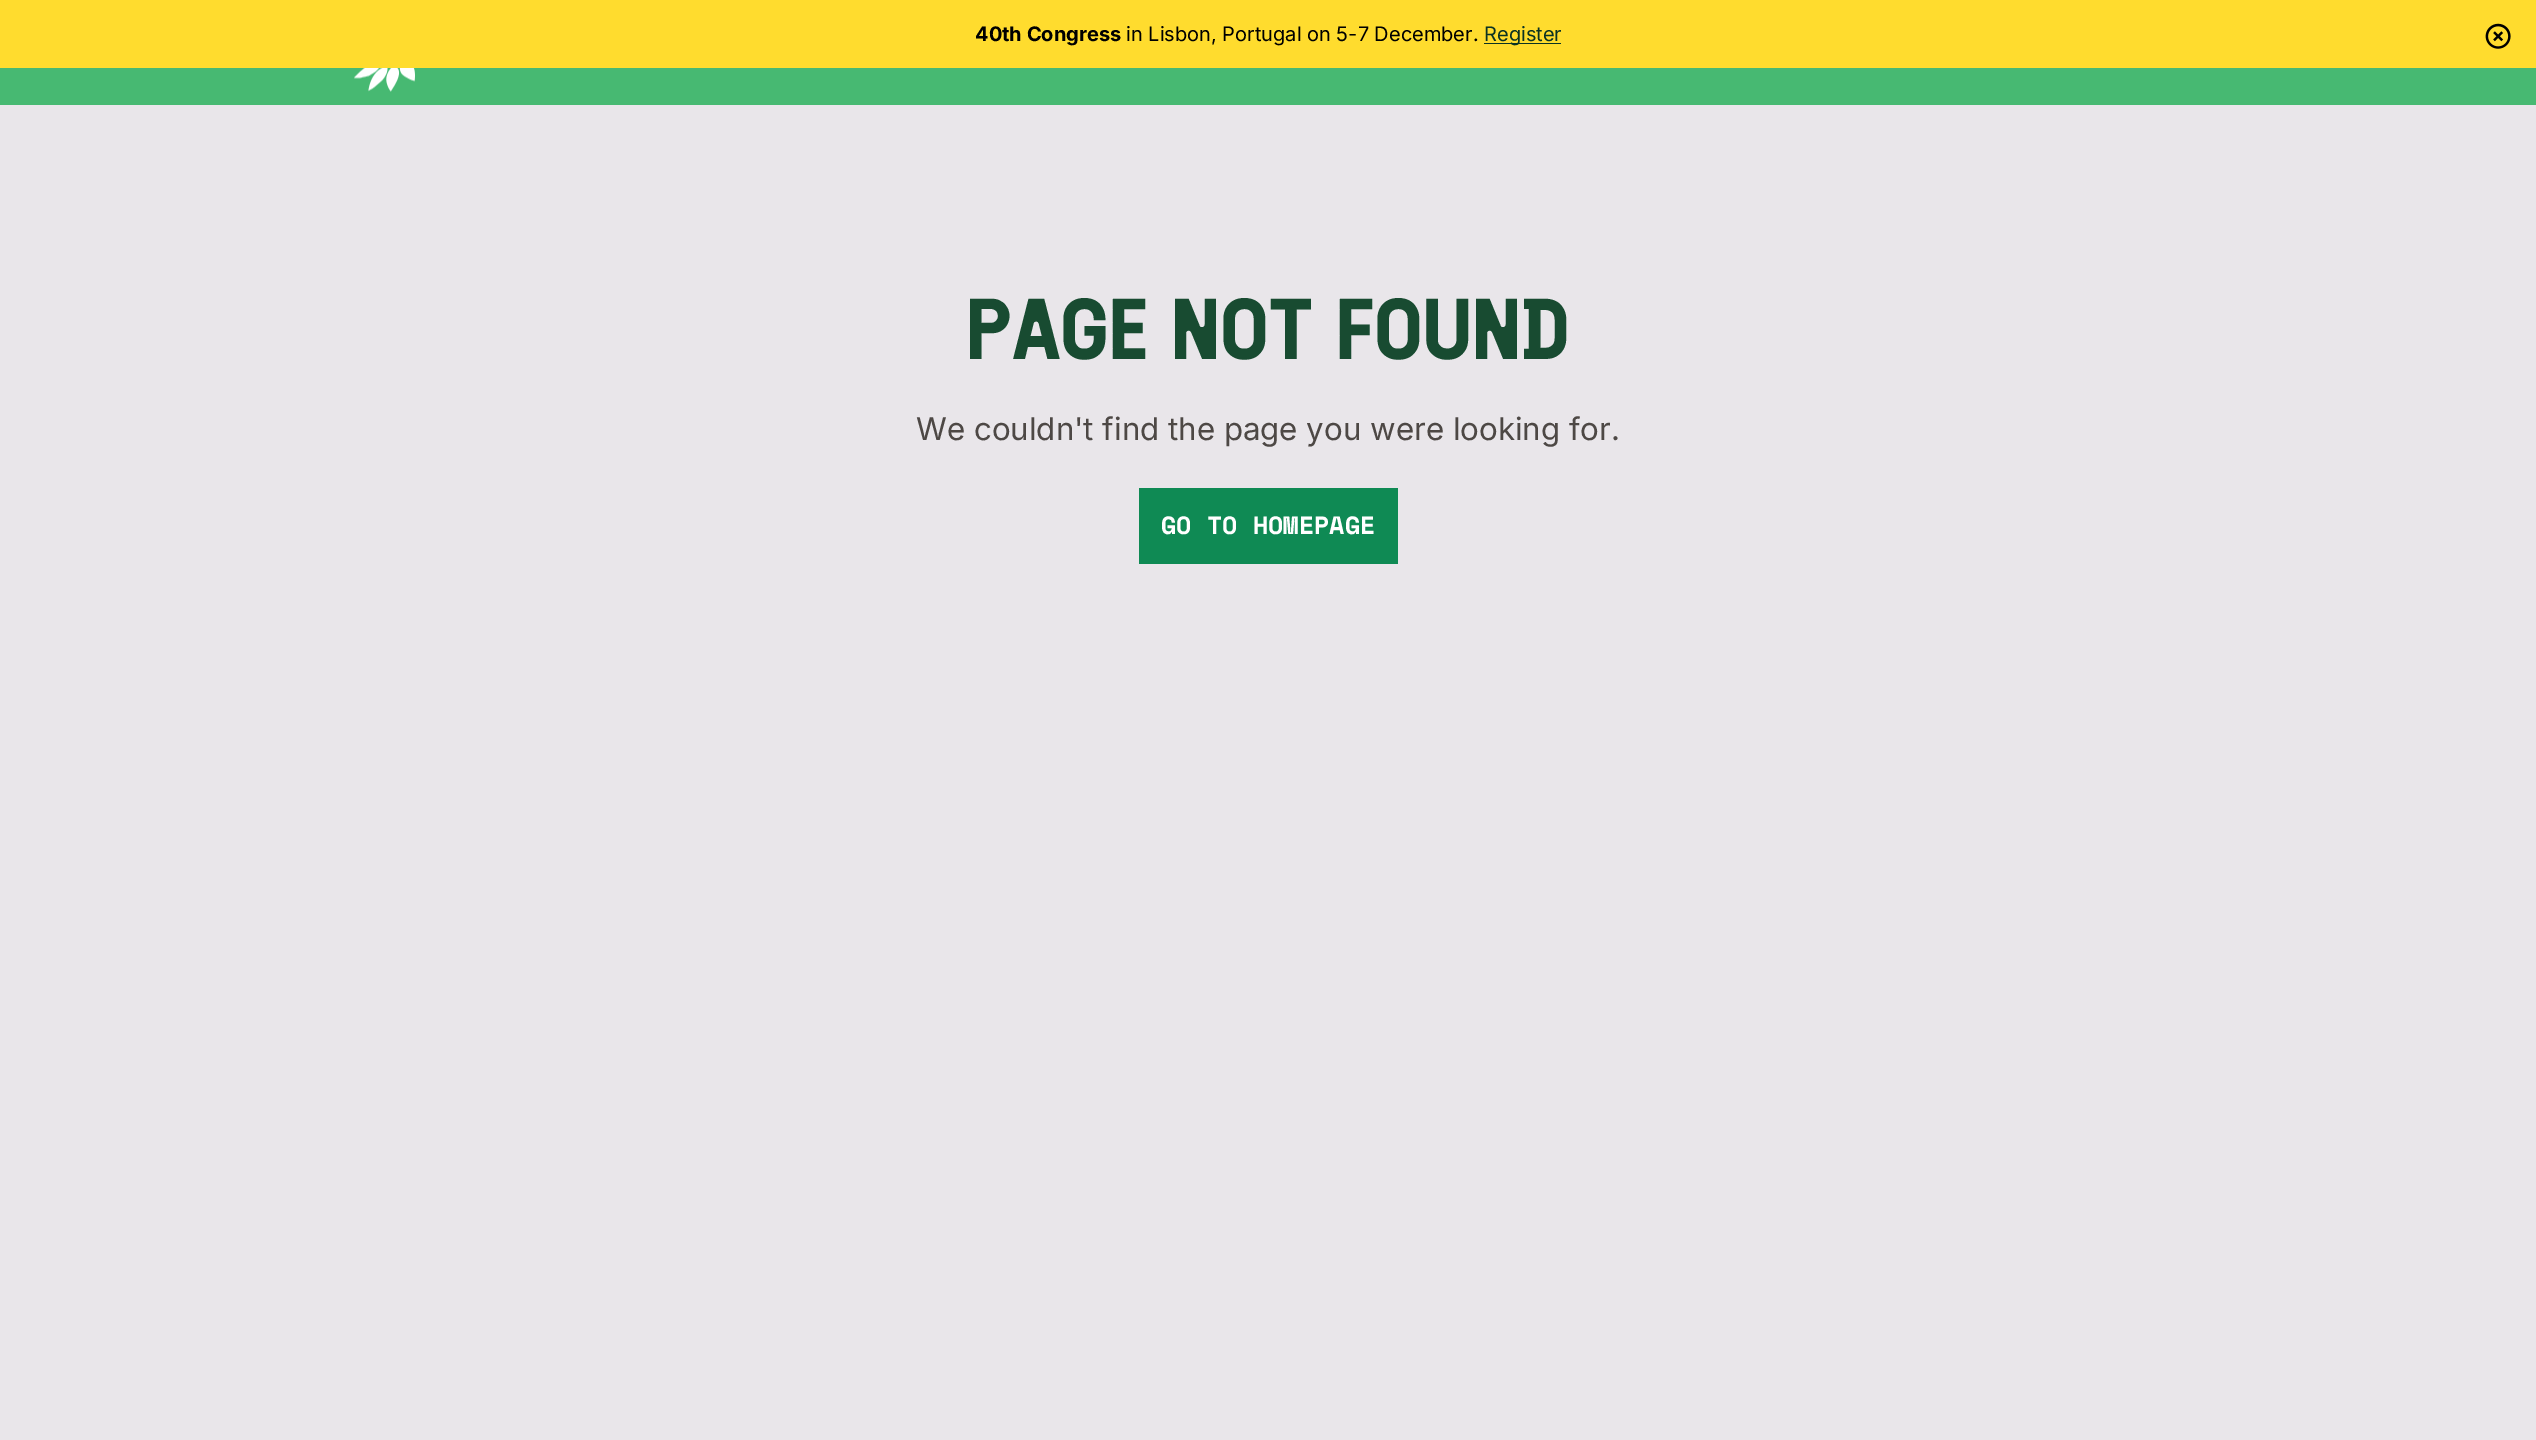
%!PS
<< /PageSize [2536 1440] >> setpagedevice
/C { dup -16 bitshift 255 div exch dup -8 bitshift 255 and 255 div exch 255 and 255 div setrgbcolor } def
/F { [ exch dup neg 0 0 3 -1 roll 0 0 ] selectfont } def
/T { moveto show } def
/R { rectfill } def
/I { 5 dict begin { /h /w /y /x /name } { exch def } forall
  gsave x y translate w h scale
  w h 8 [w 0 0 h 0 0] name (r) file false 3 colorimage grestore end } def
0 1440 translate 1 -1 scale
4 setmiterlimit
16#E9E6EA C
0 0 2536 1440 R
16#FFDC2E C
0 0 2536 68 R
/Inter-Bold 20 F
16#000000 C
(40th Congress) 975 41 T
/Inter-Regular 20 F
(in Lisbon, Portugal on 5-7 December.) 1126 41 T
16#0B3323 C
1484 43 77 1 R
(Register) 1484 41 T
(1.rgb) 2485 23 26 26 I
16#47B972 C
0 68 2536 37 R
(2.rgb) 354 68 61 24 I
/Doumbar-SemiBold 86.25 F
16#184B31 C
(PAGE NOT FOUND) 966 359 T
/Inter-Regular 31.25 F
16#4D4845 C
(We couldn't find the page you were looking for.) 916 440 T
16#0F8A54 C
1139 488 259 76 R
/SpaceMono-Bold 25 F
16#FFFFFF C
(GO TO HOMEPAGE) 1161 534 T
showpage
